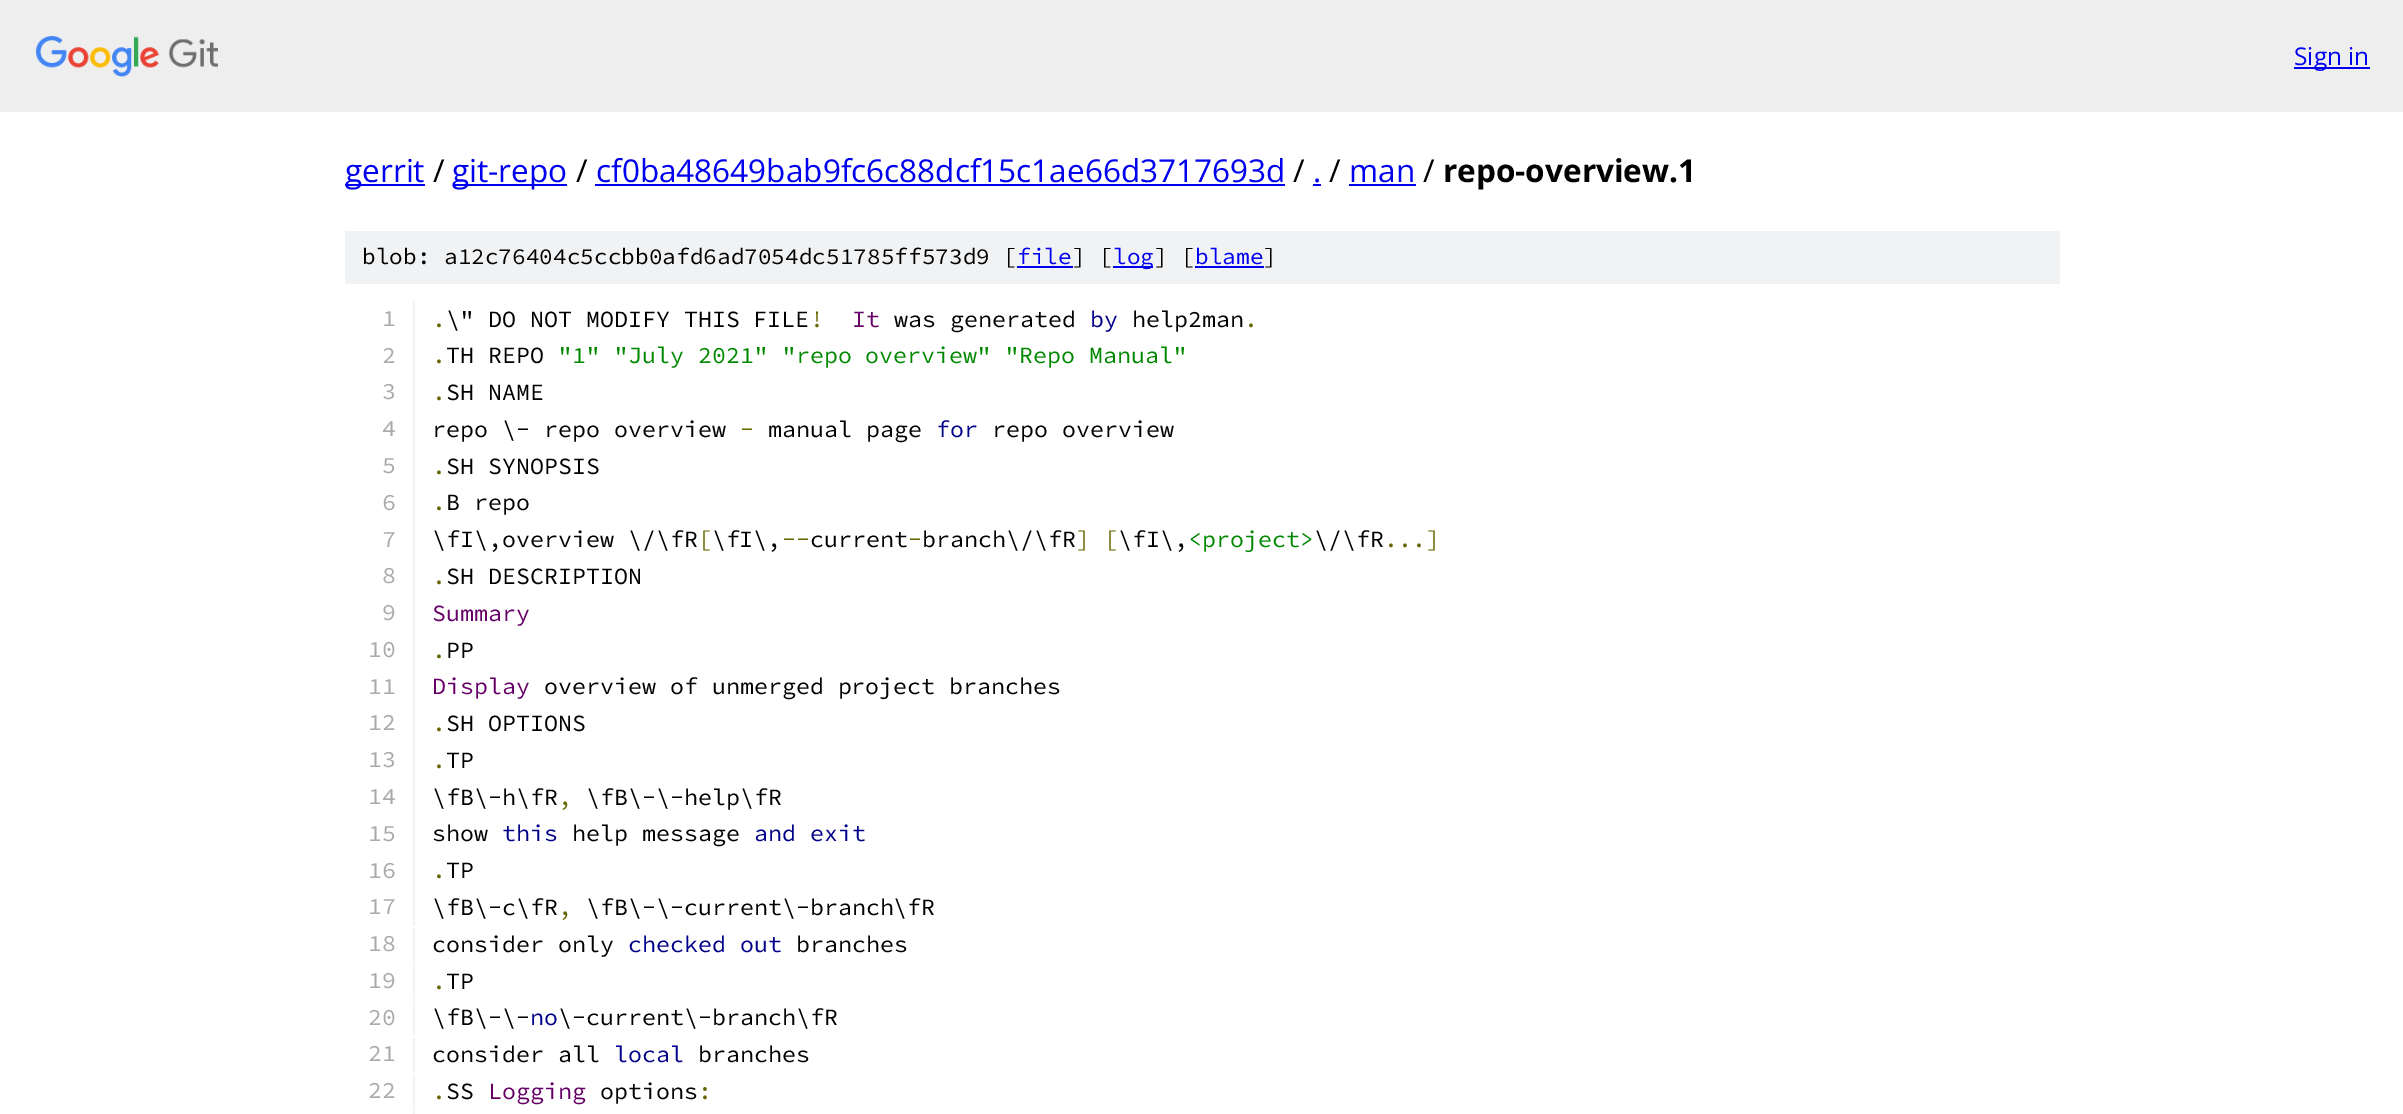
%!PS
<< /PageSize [2403 1114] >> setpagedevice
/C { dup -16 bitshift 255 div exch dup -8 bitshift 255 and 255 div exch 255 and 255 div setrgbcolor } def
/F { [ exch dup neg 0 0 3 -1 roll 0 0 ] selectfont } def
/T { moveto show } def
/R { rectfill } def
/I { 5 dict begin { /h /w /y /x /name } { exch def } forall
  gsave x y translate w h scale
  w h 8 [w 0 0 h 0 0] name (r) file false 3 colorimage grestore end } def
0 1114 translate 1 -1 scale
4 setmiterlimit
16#FFFFFF C
0 0 2403 1114 R
16#EEEEEE C
0 0 2403 112 R
(1.rgb) 35 35 183 42 I
16#0000EE C
2294 67 76 2 R
/OpenSans-Regular 24.5 F
(Sign in) 2294 65 T
345 184 80 2 R
/OpenSans-Regular 31.5 F
(gerrit) 345 182 T
16#000000 C
(/) 433 182 T
16#0000EE C
453 184 114 2 R
(git-repo) 452 182 T
16#000000 C
(/) 576 182 T
16#0000EE C
(cf0ba48649bab9fc6c88dcf15c1ae66d3717693d) 596 182 T
595 184 690 2 R
16#000000 C
(/) 1293 182 T
16#0000EE C
(.) 1313 182 T
1313 184 8 2 R
16#000000 C
(/) 1329 182 T
16#0000EE C
(man) 1349 182 T
1349 184 67 2 R
16#000000 C
(/) 1423 182 T
/OpenSans-Bold 31.5 F
(repo-overview.1) 1443 182 T
16#F1F2F3 C
345 231 1715 53 R
/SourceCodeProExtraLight-ExtraLight 22.75 F
16#000000 C
(blob: a12c76404c5ccbb0afd6ad7054dc51785ff573d9 [) 362 264 T
16#0000EE C
(file) 1017 264 T
1017 266 56 2 R
16#000000 C
(] [) 1072 264 T
16#0000EE C
1113 266 40 2 R
(log) 1113 264 T
16#000000 C
(] [) 1154 264 T
16#0000EE C
(blame) 1195 264 T
1195 266 69 2 R
16#000000 C
(]) 1263 264 T
16#F1F2F3 C
413 301 2 625 R
/SourceCodeProExtraLight-ExtraLight 23.3 F
16#AAAAAA C
(1) 382 326 T
16#666600 C
(.) 432 327 T
16#000000 C
(\\" DO NOT MODIFY THIS FILE) 446 327 T
16#666600 C
(!) 810 327 T
16#660066 C
(It) 852 327 T
16#000000 C
(was generated) 894 327 T
16#000088 C
(by) 1090 327 T
16#000000 C
(help2man) 1132 327 T
16#666600 C
(.) 1244 327 T
16#AAAAAA C
(2) 382 363 T
16#666600 C
(.) 432 363 T
16#000000 C
(TH REPO) 446 363 T
16#008800 C
("1" "July 2021" "repo overview" "Repo Manual") 558 363 T
16#AAAAAA C
(3) 382 399 T
16#666600 C
(.) 432 400 T
16#000000 C
(SH NAME) 446 400 T
16#AAAAAA C
(4) 382 436 T
16#000000 C
(repo \\- repo overview) 432 437 T
16#666600 C
(-) 740 437 T
16#000000 C
(manual page) 768 437 T
16#000088 C
(for) 936 437 T
16#000000 C
(repo overview) 992 437 T
16#AAAAAA C
(5) 382 473 T
16#666600 C
(.) 432 474 T
16#000000 C
(SH SYNOPSIS) 446 474 T
16#AAAAAA C
(6) 382 510 T
16#666600 C
(.) 432 510 T
16#000000 C
(B repo) 446 510 T
16#AAAAAA C
(7) 382 547 T
16#000000 C
(\\fI\\,overview \\/\\fR \\fI\\,) 432 547 T
16#666600 C
([) 698 547 T
(--) 782 547 T
16#000000 C
(current branch\\/\\fR) 810 547 T
16#666600 C
(] [) 1076 547 T
16#000000 C
(\\fI\\,) 1118 547 T
16#008800 C
(<project>) 1188 547 T
16#000000 C
(\\/\\fR) 1314 547 T
16#666600 C
(...]) 1384 547 T
(-) 908 547 T
16#AAAAAA C
(8) 382 583 T
16#666600 C
(.) 432 584 T
16#000000 C
(SH DESCRIPTION) 446 584 T
16#AAAAAA C
(9) 382 620 T
16#660066 C
(Summary) 432 621 T
16#AAAAAA C
(10) 368 657 T
16#666600 C
(.) 432 658 T
16#000000 C
(PP) 446 658 T
16#AAAAAA C
(11) 368 694 T
16#660066 C
(Display) 432 694 T
16#000000 C
(overview of unmerged project branches) 544 694 T
16#AAAAAA C
(12) 368 730 T
16#666600 C
(.) 432 731 T
16#000000 C
(SH OPTIONS) 446 731 T
16#AAAAAA C
(13) 368 767 T
16#666600 C
(.) 432 768 T
16#000000 C
(TP) 446 768 T
16#AAAAAA C
(14) 368 804 T
16#000000 C
(\\fB\\-h\\fR) 432 805 T
16#666600 C
(,) 558 805 T
16#000000 C
(\\fB\\-\\-help\\fR) 586 805 T
16#AAAAAA C
(15) 368 841 T
16#000000 C
(show) 432 841 T
16#000088 C
(this) 502 841 T
16#000000 C
(help message) 572 841 T
16#000088 C
(and exit) 754 841 T
16#AAAAAA C
(16) 368 878 T
16#666600 C
(.) 432 878 T
16#000000 C
(TP) 446 878 T
16#AAAAAA C
(17) 368 914 T
16#000000 C
(\\fB\\-c\\fR) 432 915 T
16#666600 C
(,) 558 915 T
16#000000 C
(\\fB\\-\\-current\\-branch\\fR) 586 915 T
16#F1F2F3 C
413 928 2 35 R
16#AAAAAA C
(18) 368 951 T
16#000000 C
(consider only) 432 952 T
16#000088 C
(checked out) 628 952 T
16#000000 C
(branches) 796 952 T
16#F1F2F3 C
413 964 2 35 R
16#AAAAAA C
(19) 368 988 T
16#666600 C
(.) 432 989 T
16#000000 C
(TP) 446 989 T
16#F1F2F3 C
413 1001 2 35 R
16#AAAAAA C
(20) 368 1025 T
16#000000 C
(\\fB\\-\\-) 432 1025 T
16#000088 C
(no) 530 1025 T
16#000000 C
(\\-current\\-branch\\fR) 558 1025 T
16#F1F2F3 C
413 1038 2 35 R
16#AAAAAA C
(21) 368 1061 T
16#000000 C
(consider all) 432 1062 T
16#000088 C
(local) 614 1062 T
16#000000 C
(branches) 698 1062 T
16#F1F2F3 C
413 1075 2 35 R
16#AAAAAA C
(22) 368 1098 T
16#666600 C
(.) 432 1099 T
16#000000 C
(SS) 446 1099 T
16#660066 C
(Logging) 488 1099 T
16#000000 C
(options) 600 1099 T
16#666600 C
(:) 698 1099 T
16#F1F2F3 C
413 1111 2 3 R
showpage
